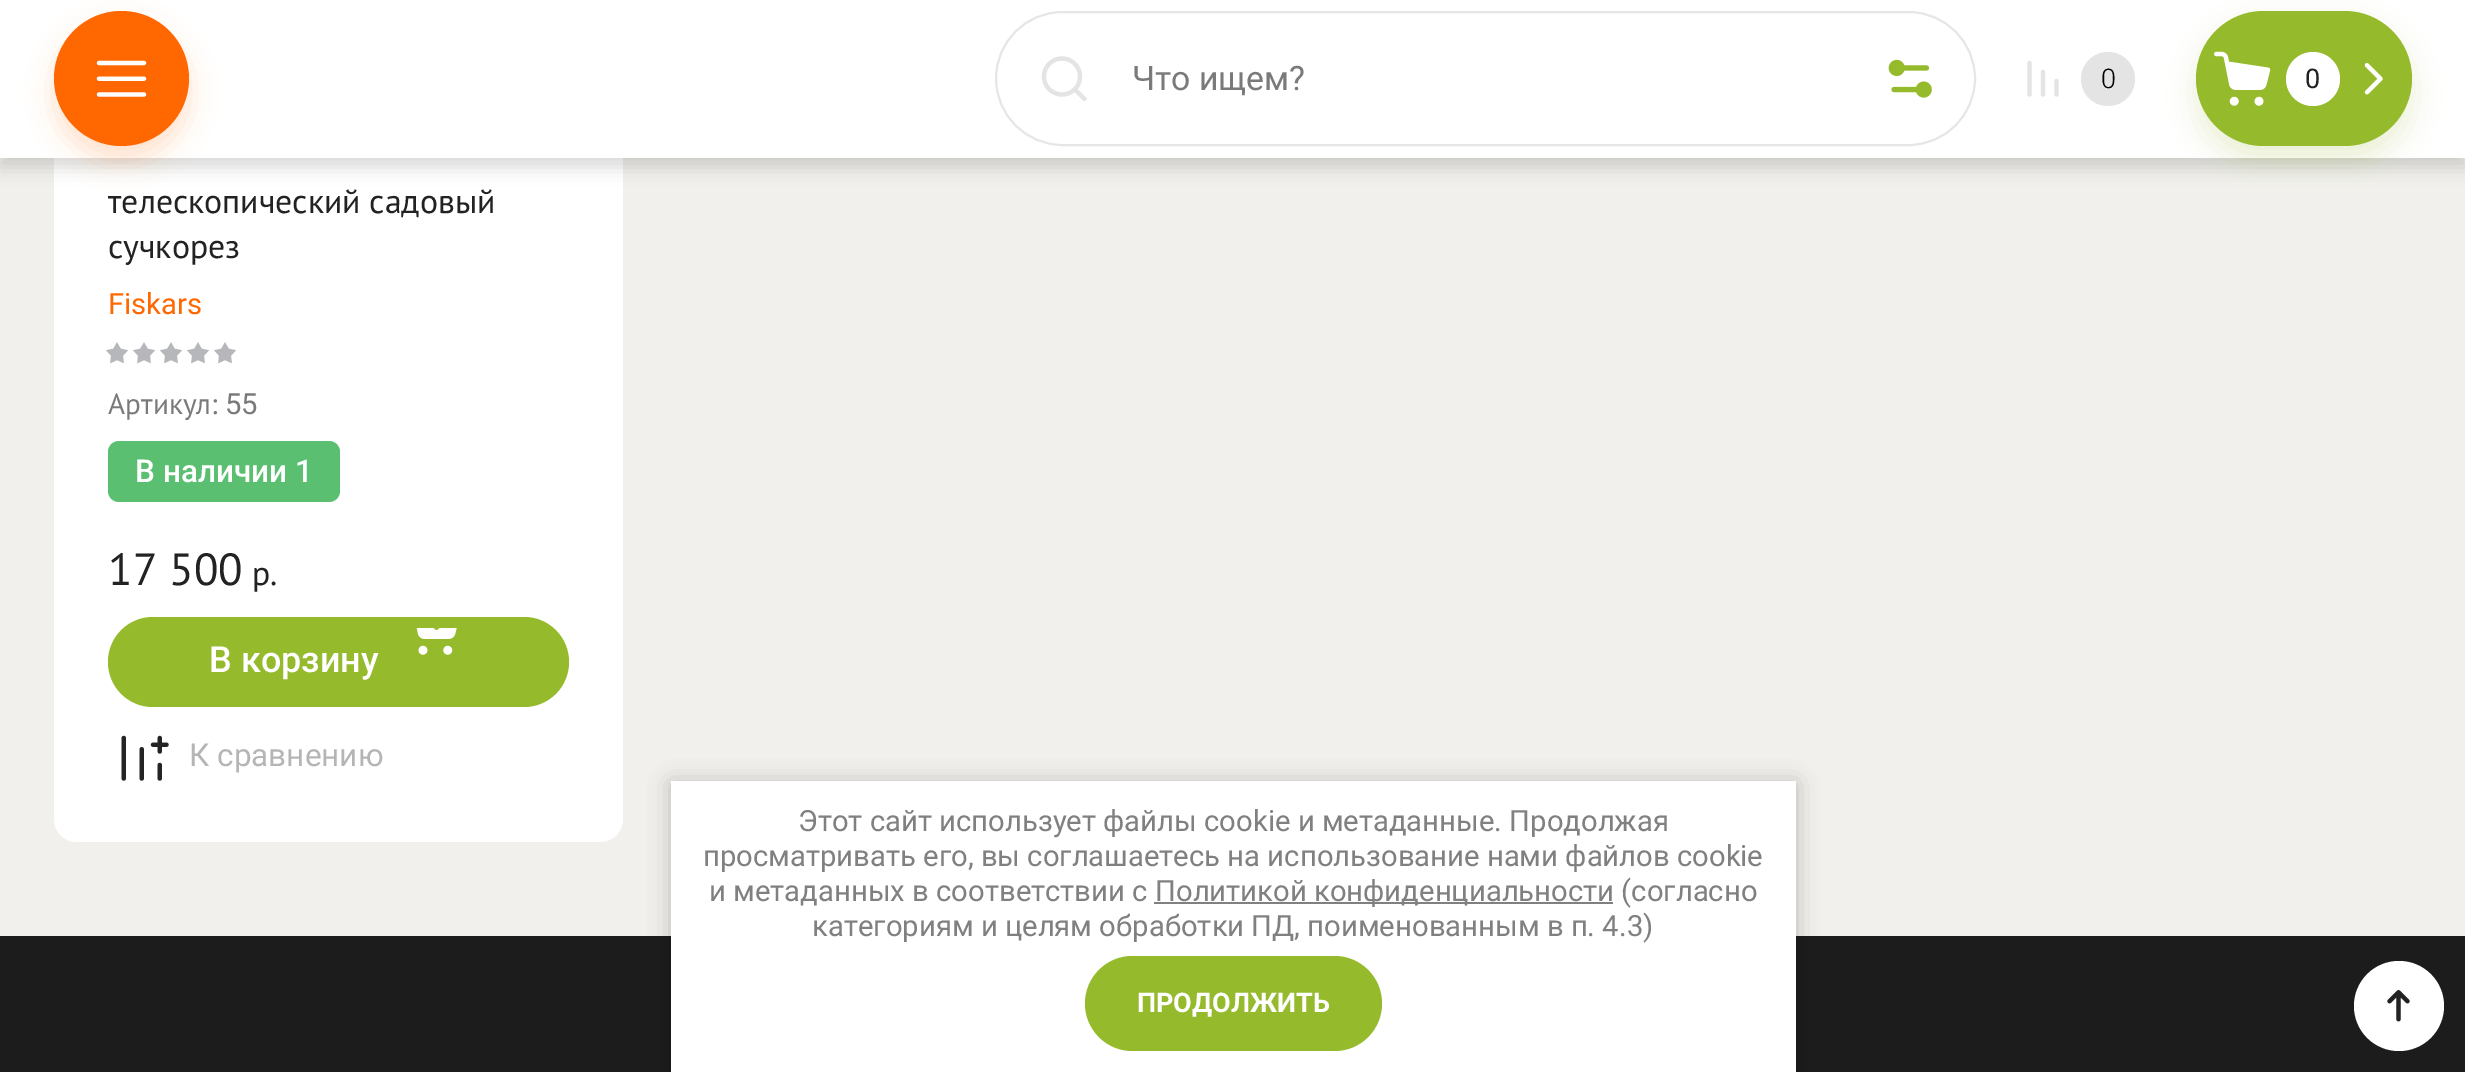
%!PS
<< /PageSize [2465 1072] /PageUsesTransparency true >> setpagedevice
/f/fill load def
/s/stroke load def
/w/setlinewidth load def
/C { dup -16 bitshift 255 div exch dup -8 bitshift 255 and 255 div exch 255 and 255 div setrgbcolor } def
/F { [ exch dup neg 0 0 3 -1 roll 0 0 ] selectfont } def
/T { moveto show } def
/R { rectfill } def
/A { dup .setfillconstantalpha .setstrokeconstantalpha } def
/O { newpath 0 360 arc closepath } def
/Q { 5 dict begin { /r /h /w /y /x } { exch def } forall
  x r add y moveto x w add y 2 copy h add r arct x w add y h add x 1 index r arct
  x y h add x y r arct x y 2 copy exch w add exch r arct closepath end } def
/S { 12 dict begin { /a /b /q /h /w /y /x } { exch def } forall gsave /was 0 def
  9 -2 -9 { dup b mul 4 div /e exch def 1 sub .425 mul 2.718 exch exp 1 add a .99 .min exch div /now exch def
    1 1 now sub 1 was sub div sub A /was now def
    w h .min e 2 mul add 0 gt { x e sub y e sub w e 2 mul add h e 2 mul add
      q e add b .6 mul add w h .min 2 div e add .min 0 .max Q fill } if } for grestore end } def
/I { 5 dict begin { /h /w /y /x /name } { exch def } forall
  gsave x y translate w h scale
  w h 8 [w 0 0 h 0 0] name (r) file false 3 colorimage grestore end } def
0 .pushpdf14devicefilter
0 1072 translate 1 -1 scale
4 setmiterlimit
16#F2F0EC C
0 0 2465 1072 R
16#FFFFFF C
54 -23 569 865 23 Q f
16#000000 C
0 9 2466 158 0 9 .15 S
16#FFFFFF C
0 0 2465 158 R
16#FF6700 C
54 25 135 135 67.5 13.5 .2 S
121.5 78.5 67.5 O f
(1.rgb) 96 60 51 37 I
16#E6E6E6 C
2 w
996 12 979 133 66.5 Q s
(2.rgb) 1041 56 46 46 I
/Roboto-Regular 33.75 F
16#7A7A7A C
(Что ищем?) 1132 90 T
(3.rgb) 1888 59 44 39 I
(4.rgb) 2027 60 32 37 I
16#E4E4E4 C
2108 79 27 O f
/Roboto-Light 27 F
16#000000 C
(0) 2101 88 T
16#95BA2C C
2196 25 216 135 67.5 13.5 .2 S
2196 11 216 135 67.5 Q f
(5.rgb) 2214 51 57 55 I
16#FFFFFF C
2313 79 27 O f
/Roboto-Regular 27 F
16#222222 C
(0) 2305 88 T
(6.rgb) 2364 63 19 32 I
/PTSans-Regular 33.75 F
(телескопический садовый) 108 213 T
(сучкорез) 108 258 T
/Roboto-Regular 29.25 F
16#FF6700 C
(Fiskars) 108 314 T
(7.rgb) 106 342 130 22 I
/PTSans-Regular 29.25 F
16#7A7A7A C
(Артикул:) 108 414 T
/Roboto-Regular 29.25 F
(55) 225 414 T
16#5ABF70 C
108 441 232 61 11 Q f
/Roboto-Medium 31.5 F
16#FFFFFF C
(В наличии 1) 135 482 T
/PTSans-Regular 45 F
16#222222 C
(17 500) 108 585 T
/PTSans-Regular 33.75 F
(р.) 252 585 T
16#95BA2C C
108 617 461 90 45 Q f
(8.rgb) 416 628 41 27 I
/Roboto-Medium 36 F
16#FFFFFF C
(В корзину) 209 672 T
(9.rgb) 121 735 48 46 I
/Roboto-Regular 31.5 F
16#B5B5B5 C
(К сравнению) 189 766 T
16#1C1C1D C
0 936 2465 136 R
16#000000 C
671 783 1125 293 0 11 .23 S
16#FFFFFF C
671 781 1125 291 R
/Roboto-Regular 29.25 F
16#808080 C
(Этот сайт использует файлы cookie и метаданные. Продолжая) 798 831 T
(просматривать его, вы соглашаетесь на использование нами файлов cookie) 703 866 T
(и метаданных в соответствии с) 709 901 T
1154 902 459 2 R
(Политикой конфиденциальности \(согласно) 1155 901 T
(категориям и целям обработки ПД, поименованным в п. 4.3\)) 812 936 T
16#95BA2C C
1085 956 297 95 47.5 Q f
/Roboto-Bold 27 F
16#FFFFFF C
(ПРОДОЛЖИТЬ) 1137 1012 T
2399 1006 45 O f
(10.rgb) 2387 990 23 32 I
.poppdf14devicefilter showpage
